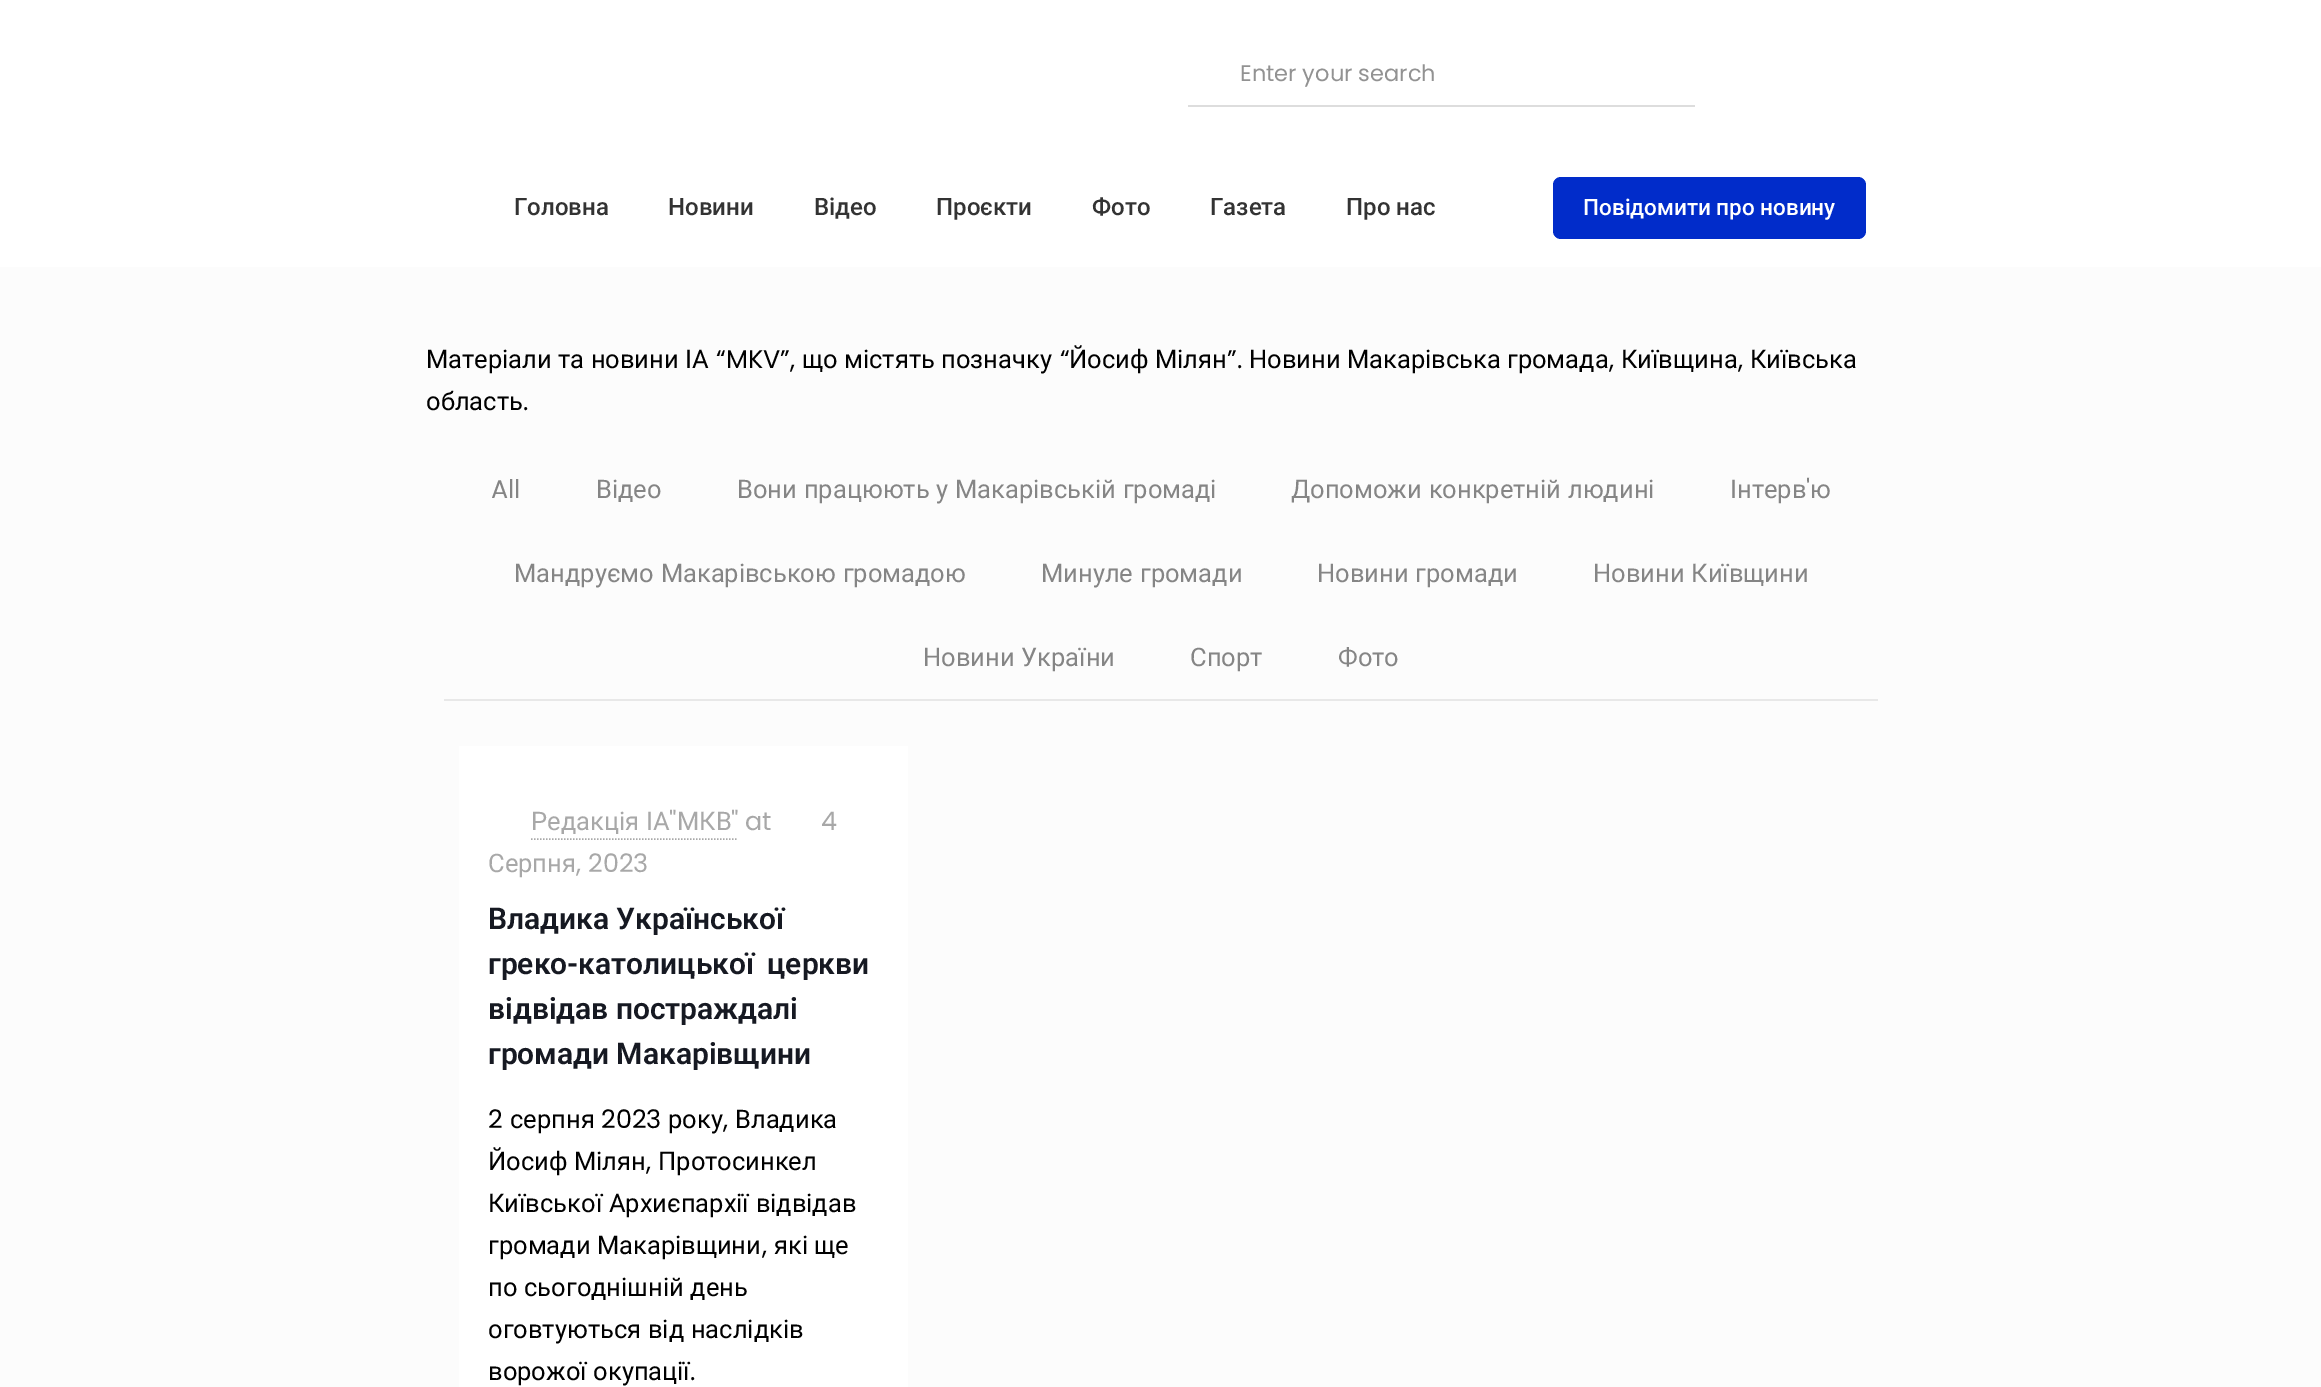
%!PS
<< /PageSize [2321 1387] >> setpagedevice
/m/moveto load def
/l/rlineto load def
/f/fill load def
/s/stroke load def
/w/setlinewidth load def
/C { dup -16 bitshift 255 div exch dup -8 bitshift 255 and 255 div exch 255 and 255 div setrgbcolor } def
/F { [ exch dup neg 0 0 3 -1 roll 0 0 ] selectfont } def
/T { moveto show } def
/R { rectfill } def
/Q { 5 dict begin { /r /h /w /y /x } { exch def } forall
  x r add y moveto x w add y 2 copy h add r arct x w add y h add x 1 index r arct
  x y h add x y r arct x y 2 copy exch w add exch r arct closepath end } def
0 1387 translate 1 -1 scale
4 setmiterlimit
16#FCFCFC C
0 0 2321 1387 R
16#FFFFFF C
0 0 2321 267 R
16#DDDDDD C
1188 105 507 2 R
/Poppins-Regular 22.5 F
16#929292 C
(Enter your search) 1240 81 T
/Roboto-Medium 24 F
16#333333 C
(Головна) 514 215 T
(Новини) 668 215 T
(Відео) 814 215 T
(Проєкти) 936 215 T
(Фото) 1092 215 T
(Газета) 1210 215 T
(Про нас) 1346 215 T
16#012CCA C
1553 177 313 62 8 Q f
/Roboto-Medium 22.5 F
16#FFFFFF C
(Повідомити про новину) 1583 215 T
/Roboto-Regular 25.5 F
16#000000 C
(Матеріали та новини ІА) 426 368 T
/Poppins-Regular 25.5 F
(“MKV”,) 716 368 T
/Roboto-Regular 25.5 F
(що містять позначку) 802 368 T
/Poppins-Regular 25.5 F
(“) 1060 368 T
/Roboto-Regular 25.5 F
(Йосиф Мілян) 1069 368 T
/Poppins-Regular 25.5 F
(”.) 1227 368 T
/Roboto-Regular 25.5 F
(Новини Макарівська громада) 1249 368 T
/Poppins-Regular 25.5 F
(,) 1609 368 T
/Roboto-Regular 25.5 F
(Київщина) 1621 368 T
/Poppins-Regular 25.5 F
(,) 1738 368 T
/Roboto-Regular 25.5 F
(Київська) 1750 368 T
(область) 426 410 T
/Poppins-Regular 25.5 F
(.) 523 410 T
16#E8E8E8 C
444 699 1434 2 R
16#858585 C
(All) 491 498 T
/Roboto-Regular 25.5 F
(Відео) 596 498 T
737 498 m .5 0 32 (Вони працюють у Макарівській громаді) widthshow
1291 498 m .5 0 32 (Допоможи конкретній людині) widthshow
(Інтерв) 1730 498 T
/Poppins-Regular 25.5 F
(') 1806 498 T
/Roboto-Regular 25.5 F
(ю) 1810 498 T
514 582 m .5 0 32 (Мандруємо Макарівською громадою) widthshow
1041 582 m .5 0 32 (Минуле громади) widthshow
1317 582 m .5 0 32 (Новини громади) widthshow
1593 582 m .5 0 32 (Новини Київщини) widthshow
923 666 m .5 0 32 (Новини України) widthshow
(Спорт) 1190 666 T
(Фото) 1338 666 T
16#FFFFFF C
459 746 449 641 R
16#A8A8A8 C
531 830 m .5 0 32 (Редакція ІА) widthshow
1.5 w
[1.5 1.5] 0 setdash
531 839 m 207 0 l s
/Poppins-Regular 25.5 F
(") 669 830 T
/Roboto-Regular 25.5 F
(МКВ) 677 830 T
/Poppins-Regular 25.5 F
(" at) 731 830 T
(4) 821 830 T
/Roboto-Regular 25.5 F
(Серпня) 488 872 T
/Poppins-Regular 25.5 F
(, 2023) 576 872 T
/Roboto-SemiBold 30 F
16#161922 C
(Владика Української) 488 929 T
488 974 m 6 0 32 (греко-католицької церкви) widthshow
(відвідав постраждалі) 488 1019 T
(громади Макарівщини) 488 1064 T
/Poppins-Regular 25.5 F
16#000000 C
(2) 488 1128 T
/Roboto-Regular 25.5 F
(серпня) 510 1128 T
/Poppins-Regular 25.5 F
(2023) 601 1128 T
/Roboto-Regular 25.5 F
(року) 668 1128 T
/Poppins-Regular 25.5 F
(,) 723 1128 T
/Roboto-Regular 25.5 F
(Владика) 735 1128 T
(Йосиф Мілян) 488 1170 T
/Poppins-Regular 25.5 F
(,) 646 1170 T
/Roboto-Regular 25.5 F
(Протосинкел) 658 1170 T
488 1212 m .5 0 32 (Київської Архиєпархії відвідав) widthshow
(громади Макарівщини) 488 1254 T
/Poppins-Regular 25.5 F
(,) 762 1254 T
/Roboto-Regular 25.5 F
(які ще) 774 1254 T
488 1296 m .5 0 32 (по сьогоднішній день) widthshow
488 1338 m .5 0 32 (оговтуються від наслідків) widthshow
488 1380 m .5 0 32 (ворожої окупації) widthshow
/Poppins-Regular 25.5 F
(.) 690 1380 T
showpage
